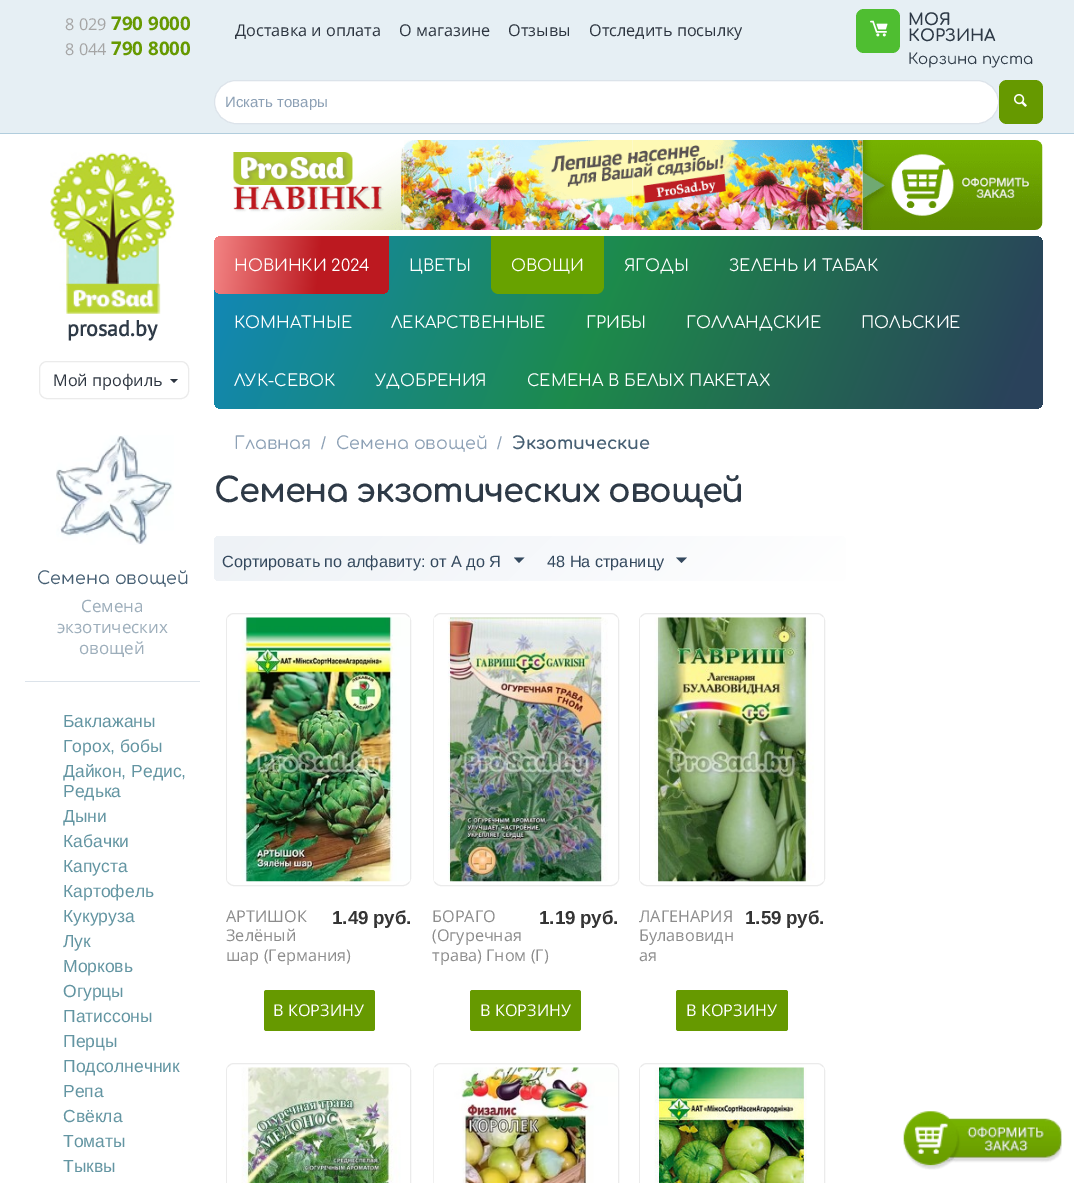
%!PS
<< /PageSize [1074 1183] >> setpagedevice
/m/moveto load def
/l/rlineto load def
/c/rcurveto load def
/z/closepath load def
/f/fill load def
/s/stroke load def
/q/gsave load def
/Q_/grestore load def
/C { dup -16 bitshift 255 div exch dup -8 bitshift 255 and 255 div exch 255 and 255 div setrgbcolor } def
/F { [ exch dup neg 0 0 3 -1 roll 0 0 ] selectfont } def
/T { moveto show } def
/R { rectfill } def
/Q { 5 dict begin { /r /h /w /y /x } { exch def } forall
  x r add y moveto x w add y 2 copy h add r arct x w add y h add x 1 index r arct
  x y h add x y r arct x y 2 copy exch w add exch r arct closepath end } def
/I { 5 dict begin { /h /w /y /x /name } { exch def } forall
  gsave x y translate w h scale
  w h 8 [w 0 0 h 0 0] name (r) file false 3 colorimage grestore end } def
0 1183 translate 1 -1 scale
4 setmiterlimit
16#FFFFFF C
0 0 1074 1183 R
16#E6EFF4 C
0 0 1074 133 R
16#B1CDDD C
0 133 1074 1 R
/OpenSans-Regular 16.25 F
16#A5A5A5 C
(8 029) 65 30 T
/OpenSans-Bold 18.75 F
16#669900 C
(790 9000) 111 30 T
/OpenSans-Regular 16.25 F
16#A5A5A5 C
(8 044) 65 55 T
/OpenSans-Bold 18.75 F
16#669900 C
(790 8000) 111 55 T
/OpenSans-Regular 16.25 F
16#2D3540 C
(Доставка и оплата) 235 36 T
(О магазине) 399 36 T
(Отзывы) 508 36 T
(Отследить посылку) 589 36 T
16#4FBE31 C
856 9 44 44 8 Q f
(1.rgb) 870 20 18 17 I
/Comfortaa-Bold 16.25 F
16#2E3A47 C
(МОЯ) 908 25 T
(КОРЗИНА) 908 41 T
/Comfortaa-Regular 15 F
(Корзина пуста) 908 64 T
16#FFFFFF C
214.5 80.5 784 43 21.5 Q q f Q_
16#DCE3EA C
s
/LiberationSans-Regular 15 F
16#8CA0B5 C
(Искать товары) 225 107 T
16#669900 C
999 80 44 44 8 Q f
(2.rgb) 1014 94 13 13 I
(3.rgb) 50 152 125 162 I
/PTSans-Bold 22 F
16#2E3A47 C
(prosad.by) 67 336 T
16#EBEBEB C
39.5 361.5 149 37 7.5 Q s
/OpenSans-Regular 16.25 F
16#2D3540 C
(Мой профиль) 53 386 T
174 383 m -4 -4 l 8 0 l z f
(4.rgb) 233 147 171 83 I
(5.rgb) 403 140 230 90 I
(6.rgb) 632 140 231 90 I
(7.rgb) 862 140 181 90 I
q 214 236 829 173 8 Q clip newpath
<< /ShadingType 2 /ColorSpace /DeviceRGB /Coords [242 166 1014 479] /Extend [true true] /Function << /FunctionType 3 /Domain [0 1] /Functions [<< /FunctionType 2 /Domain [0 1] /C0 [.071 .529 .706] /C1 [.071 .529 .706] /N 1 >> << /FunctionType 2 /Domain [0 1] /C0 [.071 .529 .706] /C1 [.114 .541 .294] /N 1 >> << /FunctionType 2 /Domain [0 1] /C0 [.114 .541 .294] /C1 [.165 .259 .357] /N 1 >> << /FunctionType 2 /Domain [0 1] /C0 [.165 .259 .357] /C1 [.165 .259 .357] /N 1 >>] /Bounds [.03 .47 .96] /Encode [0 1 0 1 0 1 0 1] >> >> shfill Q_
q 222 236 m 167 0 l 0 50 l 0 4.5 -3.5 8 -8 8 c -159 0 l -4.5 0 -8 -3.5 -8 -8 c 0 -42 l 0 -4.5 3.5 -8 8 -8 c z clip newpath
<< /ShadingType 2 /ColorSpace /DeviceRGB /Coords [212 256 391 274] /Extend [true true] /Function << /FunctionType 3 /Domain [0 1] /Functions [<< /FunctionType 2 /Domain [0 1] /C0 [.953 .518 .518] /C1 [.737 .098 .125] /N 1 >> << /FunctionType 2 /Domain [0 1] /C0 [.737 .098 .125] /C1 [.737 .098 .125] /N 1 >>] /Bounds [.6] /Encode [0 1 0 1] >> >> shfill Q_
/Comfortaa-Regular 16.25 F
16#FFFFFF C
(НОВИНКИ 2024) 234 271 T
(ЦВЕТЫ) 409 271 T
16#68A200 C
491 236 m 113 0 l 0 50 l 0 4.5 -3.5 8 -8 8 c -97 0 l -4.5 0 -8 -3.5 -8 -8 c z f
16#FFFFFF C
(ОВОЩИ) 511 271 T
(ЯГОДЫ) 624 271 T
(ЗЕЛЕНЬ И ТАБАК) 729 271 T
(КОМНАТНЫЕ) 234 328 T
(ЛЕКАРСТВЕННЫЕ) 391 328 T
(ГРИБЫ) 586 328 T
(ГОЛЛАНДСКИЕ) 686 328 T
(ПОЛЬСКИЕ) 861 328 T
(ЛУК-СЕВОК) 234 386 T
(УДОБРЕНИЯ) 375 386 T
(СЕМЕНА В БЕЛЫХ ПАКЕТАХ) 527 386 T
(8.rgb) 56 435 118 110 I
/Comfortaa-Regular 17.5 F
16#465F73 C
(Семена овощей) 37 584 T
/OpenSans-Regular 17 F
16#9DAEBB C
(Семена) 81 612 T
(экзотических) 57 633 T
(овощей) 79 654 T
16#DCE3EA C
25 681 175 1 R
/LiberationSans-Regular 17.5 F
16#6395A2 C
(Баклажаны) 63 727 T
(Горох, бобы) 63 752 T
(Дайкон, Редис,) 63 777 T
(Редька) 63 797 T
(Дыни) 63 822 T
(Кабачки) 63 847 T
(Капуста) 63 872 T
(Картофель) 63 897 T
(Кукуруза) 63 922 T
(Лук) 63 947 T
(Морковь) 63 972 T
(Огурцы) 63 997 T
(Патиссоны) 63 1022 T
(Перцы) 63 1047 T
(Подсолнечник) 63 1072 T
(Репа) 63 1097 T
(Свёкла) 63 1122 T
(Томаты) 63 1147 T
(Тыквы) 63 1172 T
/Comfortaa-Regular 17.5 F
16#8CA0B5 C
(Главная) 234 449 T
/LiberationSans-Regular 17.5 F
(/) 321 449 T
/Comfortaa-Regular 17.5 F
(Семена овощей) 336 449 T
/LiberationSans-Regular 17.5 F
(/) 497 449 T
/Comfortaa-Bold 17.5 F
16#465F73 C
(Экзотические) 512 449 T
/Comfortaa-Bold 33.75 F
16#2E3A47 C
214 502 m -1.25 0 (Семена экзотических овощей) ashow
q 214 536 632 45 5 Q clip newpath
<< /ShadingType 2 /ColorSpace /DeviceRGB /Coords [361 389 699 728] /Extend [true true] /Function << /FunctionType 2 /Domain [0 1] /C0 [.933 .949 .965] /C1 [1 1 1] /N 1 >> >> shfill Q_
/LiberationSans-Regular 16.25 F
16#34495E C
(Сортировать по алфавиту: от А до Я) 222 567 T
519 563 m -5 -5.5 l 10.5 0 l z f
(48 На страницу) 547 567 T
681.5 563 m -5.5 -5.5 l 11 0 l z f
16#EBEBEB C
226.5 613.5 184 272 7.5 Q s
(9.rgb) 227 617 183 265 I
/OpenSans-Regular 16.25 F
16#8C8C8C C
(АРТИШОК) 226 922 T
(Зелёный) 226 941 T
(шар \(Германия\)) 226 961 T
/LiberationSans-Bold 18.75 F
16#343434 C
(1.49) 332 924 T
(руб.) 373 924 T
16#669900 C
264 990 111 41 2.5 Q f
/OpenSans-Regular 16.25 F
16#FFFFFF C
(В КОРЗИНУ) 273 1016 T
16#EBEBEB C
433.5 613.5 185 272 7.5 Q s
(10.rgb) 433 617 185 265 I
16#8C8C8C C
(БОРАГО) 432 922 T
(\(Огуречная) 432 941 T
(трава\) Гном \(Г\)) 432 961 T
/LiberationSans-Bold 18.75 F
16#343434 C
(1.19) 539 924 T
(руб.) 580 924 T
16#669900 C
470 990 111 41 2.5 Q f
/OpenSans-Regular 16.25 F
16#FFFFFF C
(В КОРЗИНУ) 480 1016 T
16#EBEBEB C
639.5 613.5 185 272 7.5 Q s
(11.rgb) 640 617 184 265 I
16#8C8C8C C
(ЛАГЕНАРИЯ) 639 922 T
(Булавовидн) 639 941 T
(ая) 639 961 T
/LiberationSans-Bold 18.75 F
16#343434 C
(1.59) 745 924 T
(руб.) 786 924 T
16#669900 C
676 990 112 41 2.5 Q f
/OpenSans-Regular 16.25 F
16#FFFFFF C
(В КОРЗИНУ) 686 1016 T
16#EBEBEB C
226.5 1063.5 184 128 7.5 Q s
(12.rgb) 227 1067 183 116 I
433.5 1063.5 185 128 7.5 Q s
(13.rgb) 433 1067 185 116 I
639.5 1063.5 185 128 7.5 Q s
(14.rgb) 640 1067 184 116 I
(15.rgb) 903 1111 159 59 I
showpage
